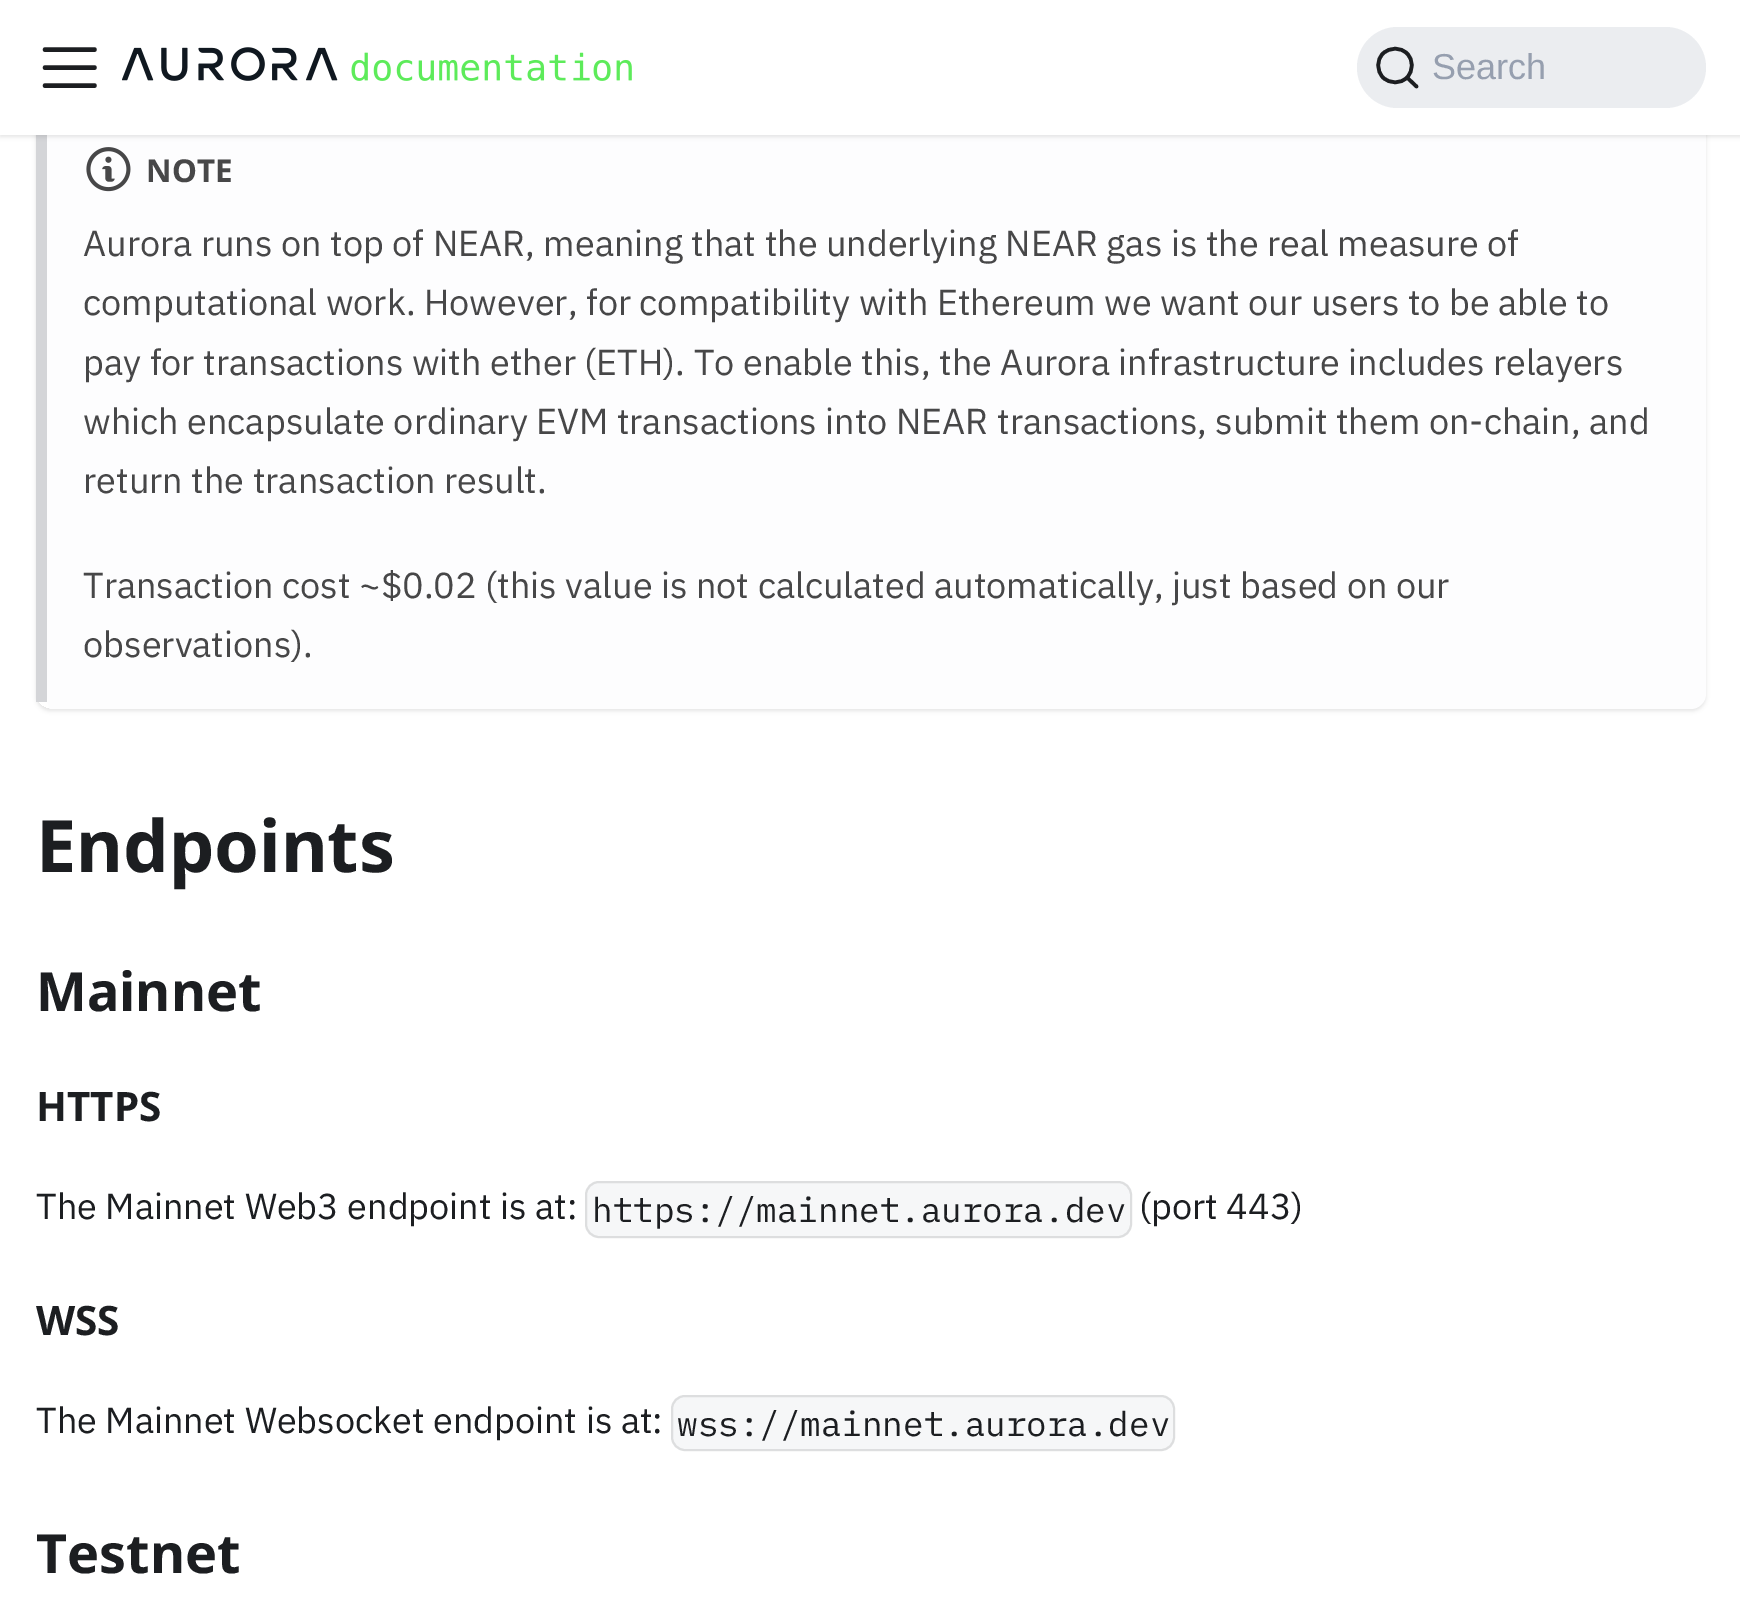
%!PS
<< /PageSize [1740 1606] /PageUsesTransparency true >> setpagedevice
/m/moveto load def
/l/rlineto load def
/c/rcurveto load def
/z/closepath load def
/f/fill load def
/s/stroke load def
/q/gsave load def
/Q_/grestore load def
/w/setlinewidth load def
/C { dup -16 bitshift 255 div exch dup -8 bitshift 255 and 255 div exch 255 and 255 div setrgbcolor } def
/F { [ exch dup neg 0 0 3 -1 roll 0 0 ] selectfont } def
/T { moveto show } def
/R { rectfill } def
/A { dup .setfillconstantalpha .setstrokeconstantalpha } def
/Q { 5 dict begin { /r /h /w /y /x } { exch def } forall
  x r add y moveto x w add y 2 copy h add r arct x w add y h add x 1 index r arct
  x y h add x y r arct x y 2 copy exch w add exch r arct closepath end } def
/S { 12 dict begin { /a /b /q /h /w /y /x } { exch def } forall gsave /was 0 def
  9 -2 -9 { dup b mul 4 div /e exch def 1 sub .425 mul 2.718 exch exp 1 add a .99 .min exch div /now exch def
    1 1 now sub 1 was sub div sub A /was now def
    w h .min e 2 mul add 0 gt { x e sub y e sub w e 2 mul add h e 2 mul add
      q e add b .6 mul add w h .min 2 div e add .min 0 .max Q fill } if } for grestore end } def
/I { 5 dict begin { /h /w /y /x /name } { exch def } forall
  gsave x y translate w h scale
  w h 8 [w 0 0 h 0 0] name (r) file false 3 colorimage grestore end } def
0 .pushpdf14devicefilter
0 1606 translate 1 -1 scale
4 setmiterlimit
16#FFFFFF C
0 0 1740 1606 R
q
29 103 m 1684 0 l 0 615 l -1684 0 l z 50 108 m 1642 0 l 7.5 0 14 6.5 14 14 c 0 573 l 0 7.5 -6.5 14 -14 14 c -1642 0 l -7.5 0 -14 -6.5 -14 -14 c 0 -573 l 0 -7.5 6.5 -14 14 -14 c z eoclip newpath
16#000000 C
36 110 1670 601 14 2 .1 S
Q_
16#FDFDFE C
50 108 m 1641 0 l 8 0 15 6 15 14 c 0 572 l 0 8 -7 15 -15 15 c -1641 0 l -1 0 -3 -7 -3 -15 c 0 -572 l 0 -8 2 -14 3 -14 c z f
16#D4D5D8 C
36 135 11 567 R
16#000000 C
0 2 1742 135 0 2 .1 S
16#FFFFFF C
0 0 1740 135 R
16#1C1E21 C
4.5 w
1 setlinecap
45 49.5 m 49.5 0 l 45 67.5 m 49.5 0 l 45 85.5 m 49.5 0 l s
(1.rgb) 122 47 510 34 I
16#EBEDF0 C
1357 27 349 81 40.5 Q f
16#1C1E21 C
3.6 w
1 setlinejoin
1407 77.5 m 9.5 9 l -9.5 -9 l -6.5 6.5 -17 6.5 -24 0 c -6.5 -7 -6.5 -17.5 0 -24 c 7 -6.5 17.5 -6.5 24 0 c 6.5 6.5 6.5 17 0 24 c z s
/LiberationSans-Regular 36 F
16#969FAF C
(Search) 1432 79 T
(2.rgb) 86 147 45 45 I
/NotoSans-Bold 31.5 F
16#474748 C
(NOTE) 146 182 T
/IBMPlexSans-Regular 36 F
(Aurora runs on top of NEAR, meaning that the underlying NEAR gas is the real measure of) 83 256 T
(computational work. However, for compatibility with Ethereum we want our users to be able to) 83 315 T
(pay for transactions with ether \(ETH\). To enable this, the Aurora infrastructure includes relayers) 83 375 T
(which encapsulate ordinary EVM transactions into NEAR transactions, submit them on-chain, and) 83 434 T
(return the transaction result.) 83 493 T
(Transaction cost ~$0.02 \(this value is not calculated automatically, just based on our) 83 598 T
(observations\).) 83 657 T
/NotoSans-Bold 72 F
16#1C1E21 C
(Endpoints) 36 872 T
/NotoSans-Bold 54 F
(Mainnet) 36 1011 T
/NotoSans-Bold 40.5 F
(HTTPS) 36 1121 T
/IBMPlexSans-Regular 36 F
(The Mainnet Web3 endpoint is at:) 36 1219 T
16#F6F7F8 C
585 1181 547 57 14 Q f
0.1 A
16#000000 C
2 w
0 setlinecap
0 setlinejoin
586 1182 545 55 13 Q s
/IBMPlexMono-Regular 34.25 F
1 A
16#1C1E21 C
(https://mainnet.aurora.dev) 592 1222 T
/IBMPlexSans-Regular 36 F
(\(port 443\)) 1139 1219 T
/NotoSans-Bold 40.5 F
(WSS) 36 1335 T
/IBMPlexSans-Regular 36 F
(The Mainnet Websocket endpoint is at:) 36 1433 T
16#F6F7F8 C
671 1395 504 56 14 Q f
0.1 A
16#000000 C
672 1396 502 54 13 Q s
/IBMPlexMono-Regular 34.25 F
1 A
16#1C1E21 C
(wss://mainnet.aurora.dev) 677 1436 T
/NotoSans-Bold 54 F
(Testnet) 36 1573 T
.poppdf14devicefilter showpage
